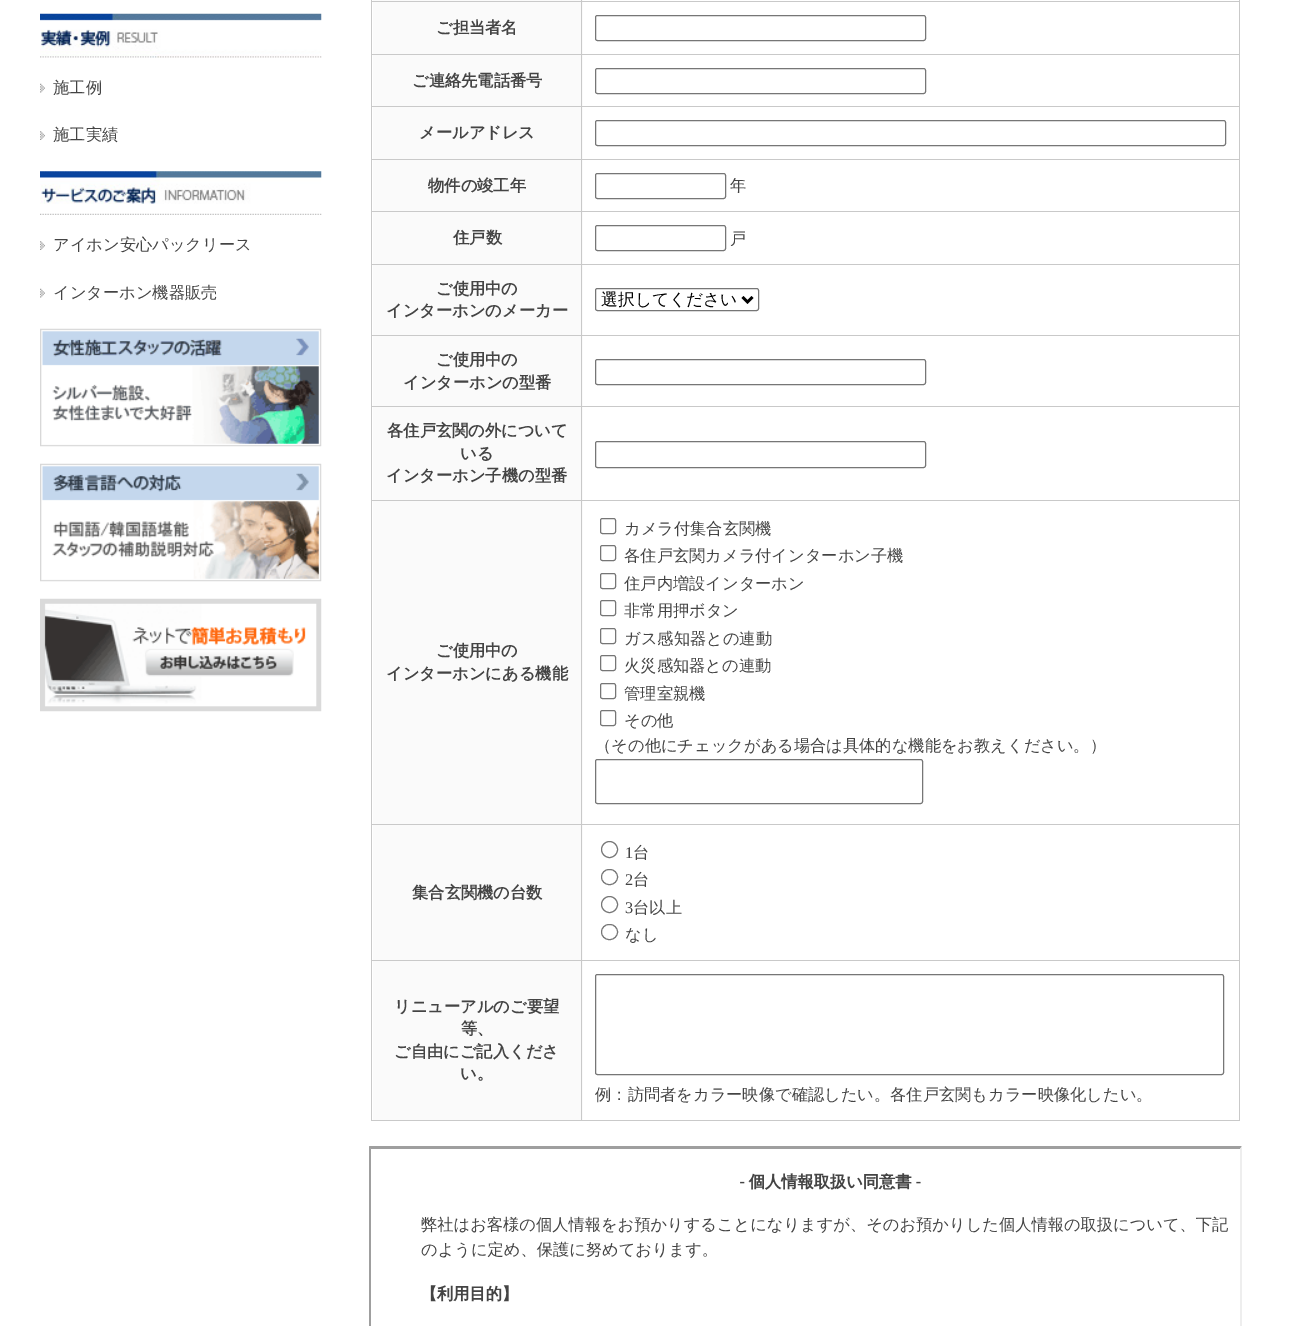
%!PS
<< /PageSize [1304 1326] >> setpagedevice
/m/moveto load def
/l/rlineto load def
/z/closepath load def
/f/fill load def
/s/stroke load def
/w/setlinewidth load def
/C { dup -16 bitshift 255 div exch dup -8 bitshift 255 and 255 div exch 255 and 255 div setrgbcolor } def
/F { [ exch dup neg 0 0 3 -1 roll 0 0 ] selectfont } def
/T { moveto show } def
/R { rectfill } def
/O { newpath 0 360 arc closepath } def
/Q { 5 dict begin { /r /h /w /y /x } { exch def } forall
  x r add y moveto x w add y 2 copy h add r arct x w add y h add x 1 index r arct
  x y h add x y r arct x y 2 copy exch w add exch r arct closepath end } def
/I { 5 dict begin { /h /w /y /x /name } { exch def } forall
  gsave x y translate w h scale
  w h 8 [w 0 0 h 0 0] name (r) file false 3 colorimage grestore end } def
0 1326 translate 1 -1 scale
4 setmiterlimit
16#FFFFFF C
0 0 1304 1326 R
(1.rgb) 40 13 282 45 I
(2.rgb) 40 83 5 10 I
/WenQuanYiZenHei-Medium 16.25 F
16#444444 C
(施工例) 53 93 T
(3.rgb) 40 131 5 9 I
(施工実績) 53 140 T
(4.rgb) 40 171 282 44 I
(3.rgb) 40 241 5 9 I
(アイホン安心パックリース) 53 250 T
(2.rgb) 40 288 5 10 I
(インターホン機器販売) 53 298 T
(5.rgb) 40 328 282 119 I
(6.rgb) 40 463 282 119 I
(7.rgb) 40 598 282 114 I
16#C9C9C9 C
1239 0 1 1121 R
371 1120 869 1 R
371 0 1 1121 R
16#FAFAFA C
373 0 210 54 R
16#C9C9C9 C
581 1 659 1 R
581 54 659 1 R
16#FAFAFA C
373 55 210 104 R
16#C9C9C9 C
581 106 659 1 R
581 159 659 1 R
16#FAFAFA C
373 160 210 104 R
16#C9C9C9 C
581 211 659 1 R
581 264 659 1 R
16#FAFAFA C
373 265 210 70 R
16#C9C9C9 C
581 335 659 1 R
16#FAFAFA C
373 336 210 164 R
16#C9C9C9 C
581 406 659 1 R
581 500 659 1 R
16#FAFAFA C
373 501 210 323 R
16#C9C9C9 C
581 824 659 1 R
16#FAFAFA C
373 825 210 135 R
16#C9C9C9 C
581 960 659 1 R
16#FAFAFA C
373 961 210 159 R
16#C9C9C9 C
581 960 1 161 R
371 960 212 1 R
581 824 1 137 R
371 824 212 1 R
581 500 1 325 R
371 500 212 1 R
581 406 1 95 R
371 406 212 1 R
581 335 1 73 R
371 335 212 1 R
581 264 1 72 R
371 264 212 1 R
581 211 1 54 R
371 211 212 1 R
581 159 1 54 R
371 159 212 1 R
581 106 1 54 R
371 106 212 1 R
581 54 1 54 R
371 54 212 1 R
581 1 1 54 R
371 1 212 1 R
581 0 1 3 R
/WenQuanYiZenHei-Bold 16.25 F
16#444444 C
(ご担当者名) 436 33 T
16#767676 C
595.5 15.5 330 25 2 Q s
16#444444 C
(ご連絡先電話番号) 412 86 T
16#767676 C
595.5 68.5 330 25 2 Q s
16#444444 C
(メールアドレス) 419 138 T
16#767676 C
595.5 120.5 630 25 2 Q s
16#444444 C
(物件の竣工年) 428 191 T
16#767676 C
595.5 173.5 130 25 2 Q s
/WenQuanYiZenHei-Medium 16.25 F
16#444444 C
(年) 730 191 T
/WenQuanYiZenHei-Bold 16.25 F
(住戸数) 453 243 T
16#767676 C
595.5 225.5 130 25 2 Q s
/WenQuanYiZenHei-Medium 16.25 F
16#444444 C
(戸) 730 244 T
/WenQuanYiZenHei-Bold 16.25 F
(ご使用中の) 436 294 T
(インターホンのメーカー) 386 316 T
16#767676 C
595.5 288.5 163 22 2 Q s
16#000000 C
2.5 w
742.5 297 m 5 5 l 5 -5 l s
/WenQuanYiZenHei-Medium 16.75 F
(選択してください) 601 305 T
/WenQuanYiZenHei-Bold 16.25 F
16#444444 C
(ご使用中の) 436 365 T
(インターホンの型番) 403 388 T
16#767676 C
1 w
595.5 359.5 330 25 2 Q s
16#444444 C
(各住戸玄関の外について) 387 436 T
(いる) 460 459 T
(インターホン子機の型番) 386 481 T
16#767676 C
595.5 441.5 330 26 2 Q s
16#444444 C
(ご使用中の) 436 656 T
(インターホンにある機能) 386 679 T
16#767676 C
600.5 518.5 15 15 2 Q s
/WenQuanYiZenHei-Medium 16.25 F
16#444444 C
(カメラ付集合玄関機) 624 534 T
16#767676 C
600.5 545.5 15 15 2 Q s
16#444444 C
(各住戸玄関カメラ付インターホン子機) 624 561 T
16#767676 C
600.5 573.5 15 15 2 Q s
16#444444 C
(住戸内増設インターホン) 624 589 T
16#767676 C
600.5 600.5 15 15 2 Q s
16#444444 C
(非常用押ボタン) 624 616 T
16#767676 C
600.5 628.5 15 15 2 Q s
16#444444 C
(ガス感知器との連動) 624 644 T
16#767676 C
600.5 655.5 15 15 2 Q s
16#444444 C
(火災感知器との連動) 624 671 T
16#767676 C
600.5 683.5 15 15 2 Q s
16#444444 C
(管理室親機) 624 699 T
16#767676 C
600.5 710.5 15 15 2 Q s
16#444444 C
(その他) 624 726 T
(（その他にチェックがある場合は具体的な機能をお教えください。）) 595 751 T
16#767676 C
595.5 759.5 327 44 2 Q s
/WenQuanYiZenHei-Bold 16.25 F
16#444444 C
(集合玄関機の台数) 412 898 T
16#767676 C
609.5 849.5 8 O s
/LiberationSerif-Regular 16.25 F
16#444444 C
(1) 625 858 T
/WenQuanYiZenHei-Medium 16.25 F
(台) 633 858 T
16#767676 C
601.5 869.5 16 15 7.5 Q s
/LiberationSerif-Regular 16.25 F
16#444444 C
(2) 625 885 T
/WenQuanYiZenHei-Medium 16.25 F
(台) 633 885 T
16#767676 C
609.5 904.5 8 O s
/LiberationSerif-Regular 16.25 F
16#444444 C
(3) 625 913 T
/WenQuanYiZenHei-Medium 16.25 F
(台以上) 633 913 T
16#767676 C
601.5 924.5 16 15 7.5 Q s
16#444444 C
(なし) 625 940 T
/WenQuanYiZenHei-Bold 16.25 F
(リニューアルのご要望) 394 1012 T
(等、) 461 1034 T
(ご自由にご記入くださ) 394 1057 T
(い。) 460 1079 T
16#767676 C
595.5 974.5 628 100 2 Q s
/WenQuanYiZenHei-Medium 16.25 F
16#444444 C
(例：訪問者をカラー映像で確認したい。各住戸玄関もカラー映像化したい。) 595 1100 T
16#9F9F9F C
369 1146 m 873 0 l -2 3 l -869 0 l z f
369 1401 m 0 -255 l 2 3 l 0 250 l z f
(8.rgb) 421 1173 807 129 I
16#EEEEEE C
1242 1146 m 0 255 l -2 -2 l 0 -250 l z f
showpage
